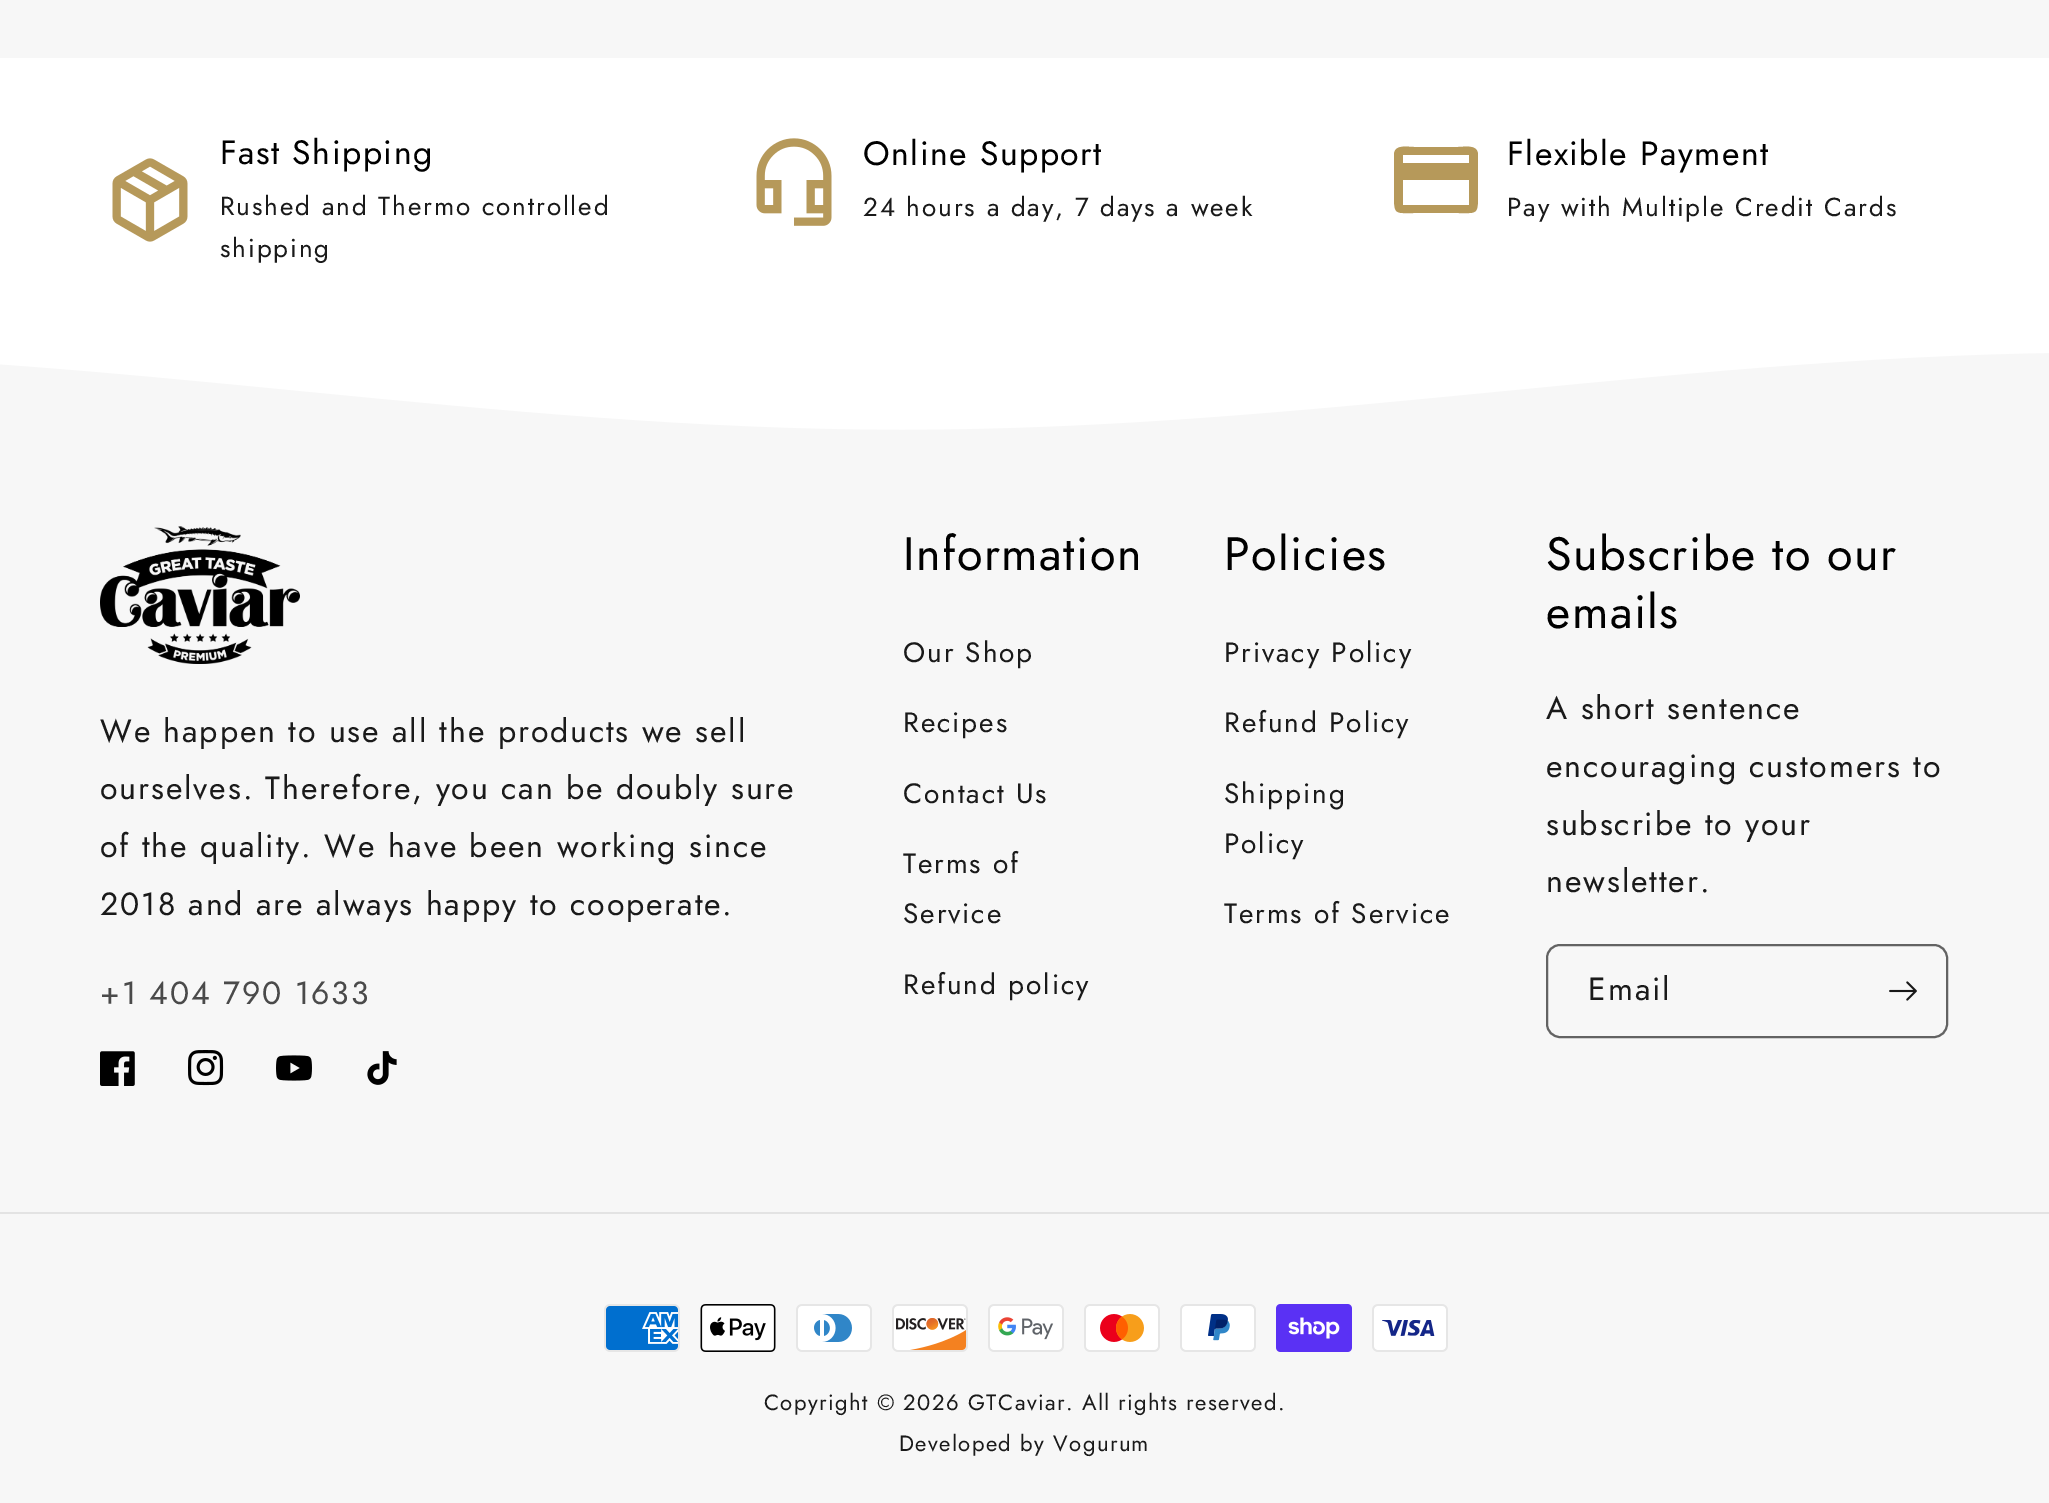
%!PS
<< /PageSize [2049 1503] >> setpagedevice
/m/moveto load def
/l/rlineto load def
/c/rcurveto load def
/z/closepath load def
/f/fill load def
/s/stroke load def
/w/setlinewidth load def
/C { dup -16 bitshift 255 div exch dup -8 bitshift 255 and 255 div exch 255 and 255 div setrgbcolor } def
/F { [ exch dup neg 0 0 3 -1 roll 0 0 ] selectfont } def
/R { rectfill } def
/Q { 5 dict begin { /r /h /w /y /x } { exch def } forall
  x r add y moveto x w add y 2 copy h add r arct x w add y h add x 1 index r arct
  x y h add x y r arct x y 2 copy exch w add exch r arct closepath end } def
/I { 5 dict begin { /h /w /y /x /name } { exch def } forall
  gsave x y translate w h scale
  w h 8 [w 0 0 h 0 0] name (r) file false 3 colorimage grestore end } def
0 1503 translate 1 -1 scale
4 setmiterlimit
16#FFFFFF C
0 0 2049 1503 R
16#F7F7F7 C
0 0 2049 58 R
(1.rgb) 112 158 76 84 I
/Jost-Regular 33.75 F
16#000000 C
220 164 m 1.5 0 (Fast Shipping) ashow
/Jost-Regular 26 F
16#1A1A1A C
220 215 m 1.9 0 (Rushed and Thermo controlled) ashow
220 257 m 1.9 0 (shipping) ashow
(2.rgb) 756 138 76 88 I
/Jost-Regular 33.75 F
16#000000 C
863 165 m 1.5 0 (Online Support) ashow
/Jost-Regular 26 F
16#1A1A1A C
863 216 m 1.9 0 (24 hours a day, 7 days a week) ashow
16#B6995A C
1478 155 m 0 42 l 0 18 -2 16 -20 16 c -44 0 l -18 0 -20 2 -20 -16 c 0 -42 l 0 -11 13 -8 20 -8 c 44 0 l 7 0 20 -3 20 8 c z 1403 163 m 66 0 l 0 -8 l -66 0 l z 1403 180 m 0 25 l 66 0 l 0 -25 l z 1403 205 m 0 -50 l z f
/Jost-Regular 33.75 F
16#000000 C
1507 165 m 1.5 0 (Flexible Payment) ashow
/Jost-Regular 26 F
16#1A1A1A C
1507 216 m 1.9 0 (Pay with Multiple Credit Cards) ashow
(3.rgb) 0 353 2049 109 I
16#F7F7F7 C
0 462 2049 1041 R
(4.rgb) 100 526 200 138 I
/Jost-Regular 32 F
16#1A1A1A C
100 742 m 1.9 0 (We happen to use all the products we sell) ashow
100 799 m 1.9 0 (ourselves. Therefore, you can be doubly sure) ashow
100 857 m 1.9 0 (of the quality. We have been working since) ashow
100 915 m 1.9 0 (2018 and are always happy to cooperate.) ashow
16#4A4A4A C
100 1004 m 1.9 0 (+1 404 790 1633) ashow
(5.rgb) 100 1051 35 35 I
(6.rgb) 188 1050 36 36 I
(7.rgb) 276 1055 36 26 I
(8.rgb) 367 1051 30 34 I
/Jost-Regular 46.75 F
16#000000 C
903 570 m 1.5 0 (Information) ashow
/Jost-Regular 28 F
16#1A1A1A C
903 662 m 1.9 0 (Our Shop) ashow
903 732 m 1.9 0 (Recipes) ashow
903 803 m 1.9 0 (Contact Us) ashow
903 873 m 1.9 0 (Terms of) ashow
903 923 m 1.9 0 (Service) ashow
903 994 m 1.9 0 (Refund policy) ashow
/Jost-Regular 46.75 F
16#000000 C
1224 570 m 1.5 0 (Policies) ashow
/Jost-Regular 28 F
16#1A1A1A C
1224 662 m 1.9 0 (Privacy Policy) ashow
1224 732 m 1.9 0 (Refund Policy) ashow
1224 803 m 1.9 0 (Shipping) ashow
1224 853 m 1.9 0 (Policy) ashow
1224 923 m 1.9 0 (Terms of Service) ashow
/Jost-Regular 46.75 F
16#000000 C
1546 570 m 1.5 0 (Subscribe to our) ashow
1546 628 m 1.5 0 (emails) ashow
/Jost-Regular 32 F
16#1A1A1A C
1546 719 m 1.9 0 (A short sentence) ashow
1546 777 m 1.9 0 (encouraging customers to) ashow
1546 835 m 1.9 0 (subscribe to your) ashow
1546 892 m 1.9 0 (newsletter.) ashow
16#636363 C
2 w
1547 945 400 92 13 Q s
16#1A1A1A C
1588 1000 m 2 0 (Email) ashow
(9.rgb) 1889 981 28 20 I
16#E3E3E3 C
0 1212 2049 2 R
(10.rgb) 604 1304 76 48 I
(11.rgb) 700 1304 76 48 I
(12.rgb) 796 1304 76 48 I
(13.rgb) 892 1304 76 48 I
(14.rgb) 988 1304 76 48 I
(15.rgb) 1084 1304 76 48 I
(16.rgb) 1180 1304 76 48 I
(17.rgb) 1276 1304 76 48 I
(18.rgb) 1372 1304 76 48 I
/Jost-Regular 22 F
16#1A1A1A C
764 1410 m 1.4 0 (Copyright © 2026 GTCaviar. All rights reserved.) ashow
899 1451 m 1.4 0 (Developed by Vogurum) ashow
showpage
